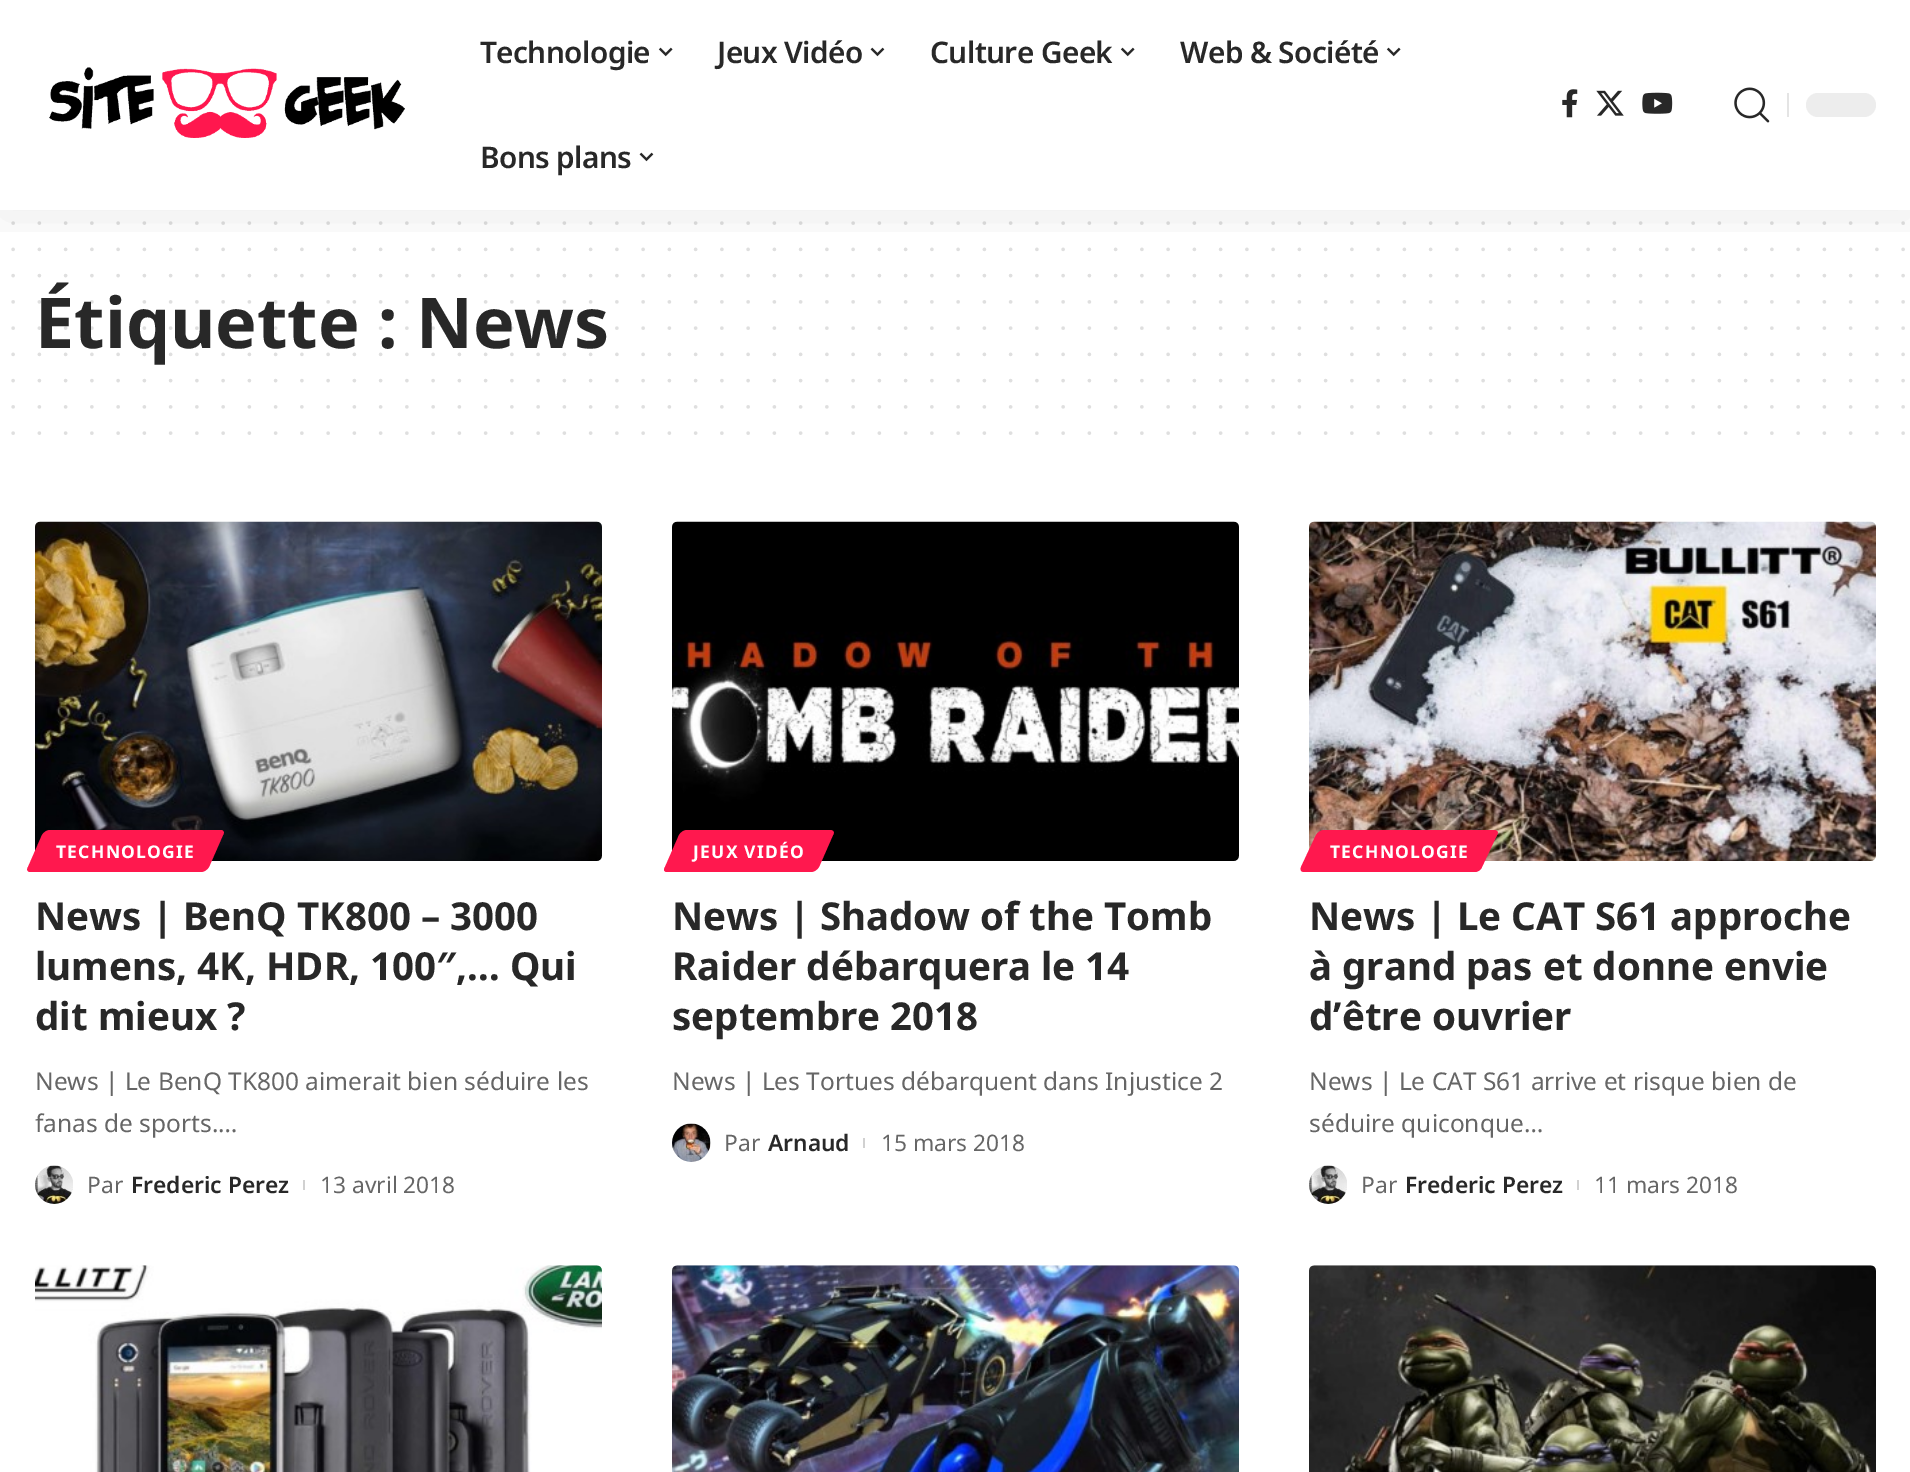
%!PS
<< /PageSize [1910 1472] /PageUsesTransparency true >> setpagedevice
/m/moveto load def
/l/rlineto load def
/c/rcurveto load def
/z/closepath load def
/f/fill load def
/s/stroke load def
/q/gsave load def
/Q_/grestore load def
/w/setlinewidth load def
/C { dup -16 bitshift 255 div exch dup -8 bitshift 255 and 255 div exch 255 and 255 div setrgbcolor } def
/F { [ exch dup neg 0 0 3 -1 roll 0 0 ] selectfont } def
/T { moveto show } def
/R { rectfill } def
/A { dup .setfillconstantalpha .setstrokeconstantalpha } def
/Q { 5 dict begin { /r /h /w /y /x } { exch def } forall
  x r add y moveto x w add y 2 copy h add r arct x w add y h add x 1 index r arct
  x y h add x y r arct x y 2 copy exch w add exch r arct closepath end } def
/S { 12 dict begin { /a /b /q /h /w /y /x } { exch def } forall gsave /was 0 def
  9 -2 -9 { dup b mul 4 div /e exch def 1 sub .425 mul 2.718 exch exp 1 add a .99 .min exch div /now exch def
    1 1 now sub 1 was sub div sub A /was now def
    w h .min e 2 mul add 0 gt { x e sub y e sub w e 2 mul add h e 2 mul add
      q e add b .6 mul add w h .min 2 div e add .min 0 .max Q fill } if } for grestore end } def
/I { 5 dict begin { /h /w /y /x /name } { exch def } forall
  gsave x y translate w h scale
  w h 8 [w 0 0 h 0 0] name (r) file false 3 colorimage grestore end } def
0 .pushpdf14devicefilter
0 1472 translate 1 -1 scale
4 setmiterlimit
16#FFFFFF C
0 0 1910 1472 R
16#DFDFDF C
3.5 w
1 setlinecap
[0 26.25] 0 setdash
13.1 223.1 m 1890.4 0 l s
13.1 249.4 m 1890.4 0 l s
13.1 275.6 m 1890.4 0 l s
q
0 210 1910 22 rectclip
16#000000 C
0 7 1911 210 0 26 .07 S
Q_
(1.rgb) 49 67 356 71 I
/NotoSans-SemiBold 29.75 F
16#282828 C
480 63 m -.6 0 (Technologie) ashow
(2.rgb) 658 47 15 10 I
717 63 m -.6 0 (Jeux Vidéo) ashow
(3.rgb) 870 47 15 10 I
930 63 m -.6 0 (Culture Geek) ashow
(2.rgb) 1120 47 15 10 I
1180 63 m -.6 0 (Web & Société) ashow
(2.rgb) 1386 47 15 10 I
480 168 m -.6 0 (Bons plans) ashow
(3.rgb) 639 152 15 10 I
(4.rgb) 1562 89 16 29 I
(5.rgb) 1596 90 28 26 I
(6.rgb) 1642 92 31 22 I
(7.rgb) 1734 87 36 36 I
16#E4E4E4 C
1787 93 2 24 R
16#EDEDED C
1806 93 70 24 12 Q f
/NotoSans-Bold 70 F
16#282828 C
(Étiquette : News) 35 348 T
0.15 A
13.1 301.9 m 1890.4 0 l s
13.1 328.1 m 1890.4 0 l s
1 A
16#DFDFDF C
13.1 354.4 m 1890.4 0 l s
13.1 380.6 m 1890.4 0 l s
13.1 406.9 m 1890.4 0 l s
13.1 433.1 m 1890.4 0 l s
(8.rgb) 35 521 567 340 I
16#FF184E C
50 830 m 171 0 l 2 0 4 2 2 5 c -14 32 l -2 3 -5 5 -8 5 c -171 0 l -2 0 -4 -2 -2 -5 c 14 -32 l 2 -3 5 -5 8 -5 c z f
/NotoSans-Bold 17.5 F
16#FFFFFF C
56 858 m 1.25 0 (TECHNOLOGIE) ashow
/NotoSans-Bold 38.5 F
16#282828 C
(News | BenQ TK800 – 3000) 35 930 T
(lumens, 4K, HDR, 100″,… Qui) 35 980 T
(dit mieux ?) 35 1030 T
/NotoSans-Regular 24.5 F
16#666666 C
(News | Le BenQ TK800 aimerait bien séduire les) 35 1090 T
(fanas de sports.…) 35 1132 T
(9.rgb) 35 1165 38 39 I
/NotoSans-Regular 22.75 F
(Par) 87 1193 T
/NotoSans-SemiBold 22.75 F
16#282828 C
(Frederic Perez) 131 1193 T
16#D1D1D1 C
303 1180 2 10 R
/NotoSans-Regular 22.75 F
16#666666 C
(13 avril 2018) 320 1193 T
(10.rgb) 672 521 567 340 I
16#FF184E C
687 830 m 143 0 l 3 0 5 2 3 5 c -14 32 l -2 3 -5 5 -8 5 c -144 0 l -3 0 -4 -2 -2 -5 c 14 -32 l 2 -3 5 -5 8 -5 c z f
/NotoSans-Bold 17.5 F
16#FFFFFF C
693 858 m 1.25 0 (JEUX VIDÉO) ashow
/NotoSans-Bold 38.5 F
16#282828 C
(News | Shadow of the Tomb) 672 930 T
(Raider débarquera le 14) 672 980 T
(septembre 2018) 672 1030 T
/NotoSans-Regular 24.5 F
16#666666 C
(News | Les Tortues débarquent dans Injustice 2) 672 1090 T
(11.rgb) 672 1123 39 39 I
/NotoSans-Regular 22.75 F
(Par) 724 1151 T
/NotoSans-SemiBold 22.75 F
16#282828 C
(Arnaud) 768 1151 T
16#D1D1D1 C
863 1138 2 10 R
/NotoSans-Regular 22.75 F
16#666666 C
(15 mars 2018) 881 1151 T
(12.rgb) 1309 521 567 340 I
16#FF184E C
1324 830 m 170 0 l 3 0 5 2 3 5 c -15 32 l -1 3 -4 5 -7 5 c -171 0 l -3 0 -4 -2 -3 -5 c 15 -32 l 2 -3 5 -5 8 -5 c z f
/NotoSans-Bold 17.5 F
16#FFFFFF C
1330 858 m 1.25 0 (TECHNOLOGIE) ashow
/NotoSans-Bold 38.5 F
16#282828 C
(News | Le CAT S61 approche) 1309 930 T
(à grand pas et donne envie) 1309 980 T
(d’être ouvrier) 1309 1030 T
/NotoSans-Regular 24.5 F
16#666666 C
(News | Le CAT S61 arrive et risque bien de) 1309 1090 T
(séduire quiconque…) 1309 1132 T
(13.rgb) 1309 1165 38 39 I
/NotoSans-Regular 22.75 F
(Par) 1361 1193 T
/NotoSans-SemiBold 22.75 F
16#282828 C
(Frederic Perez) 1405 1193 T
16#D1D1D1 C
1577 1180 2 10 R
/NotoSans-Regular 22.75 F
16#666666 C
(11 mars 2018) 1594 1193 T
(14.rgb) 35 1265 567 207 I
(15.rgb) 672 1265 567 207 I
(16.rgb) 1309 1265 567 207 I
.poppdf14devicefilter showpage
